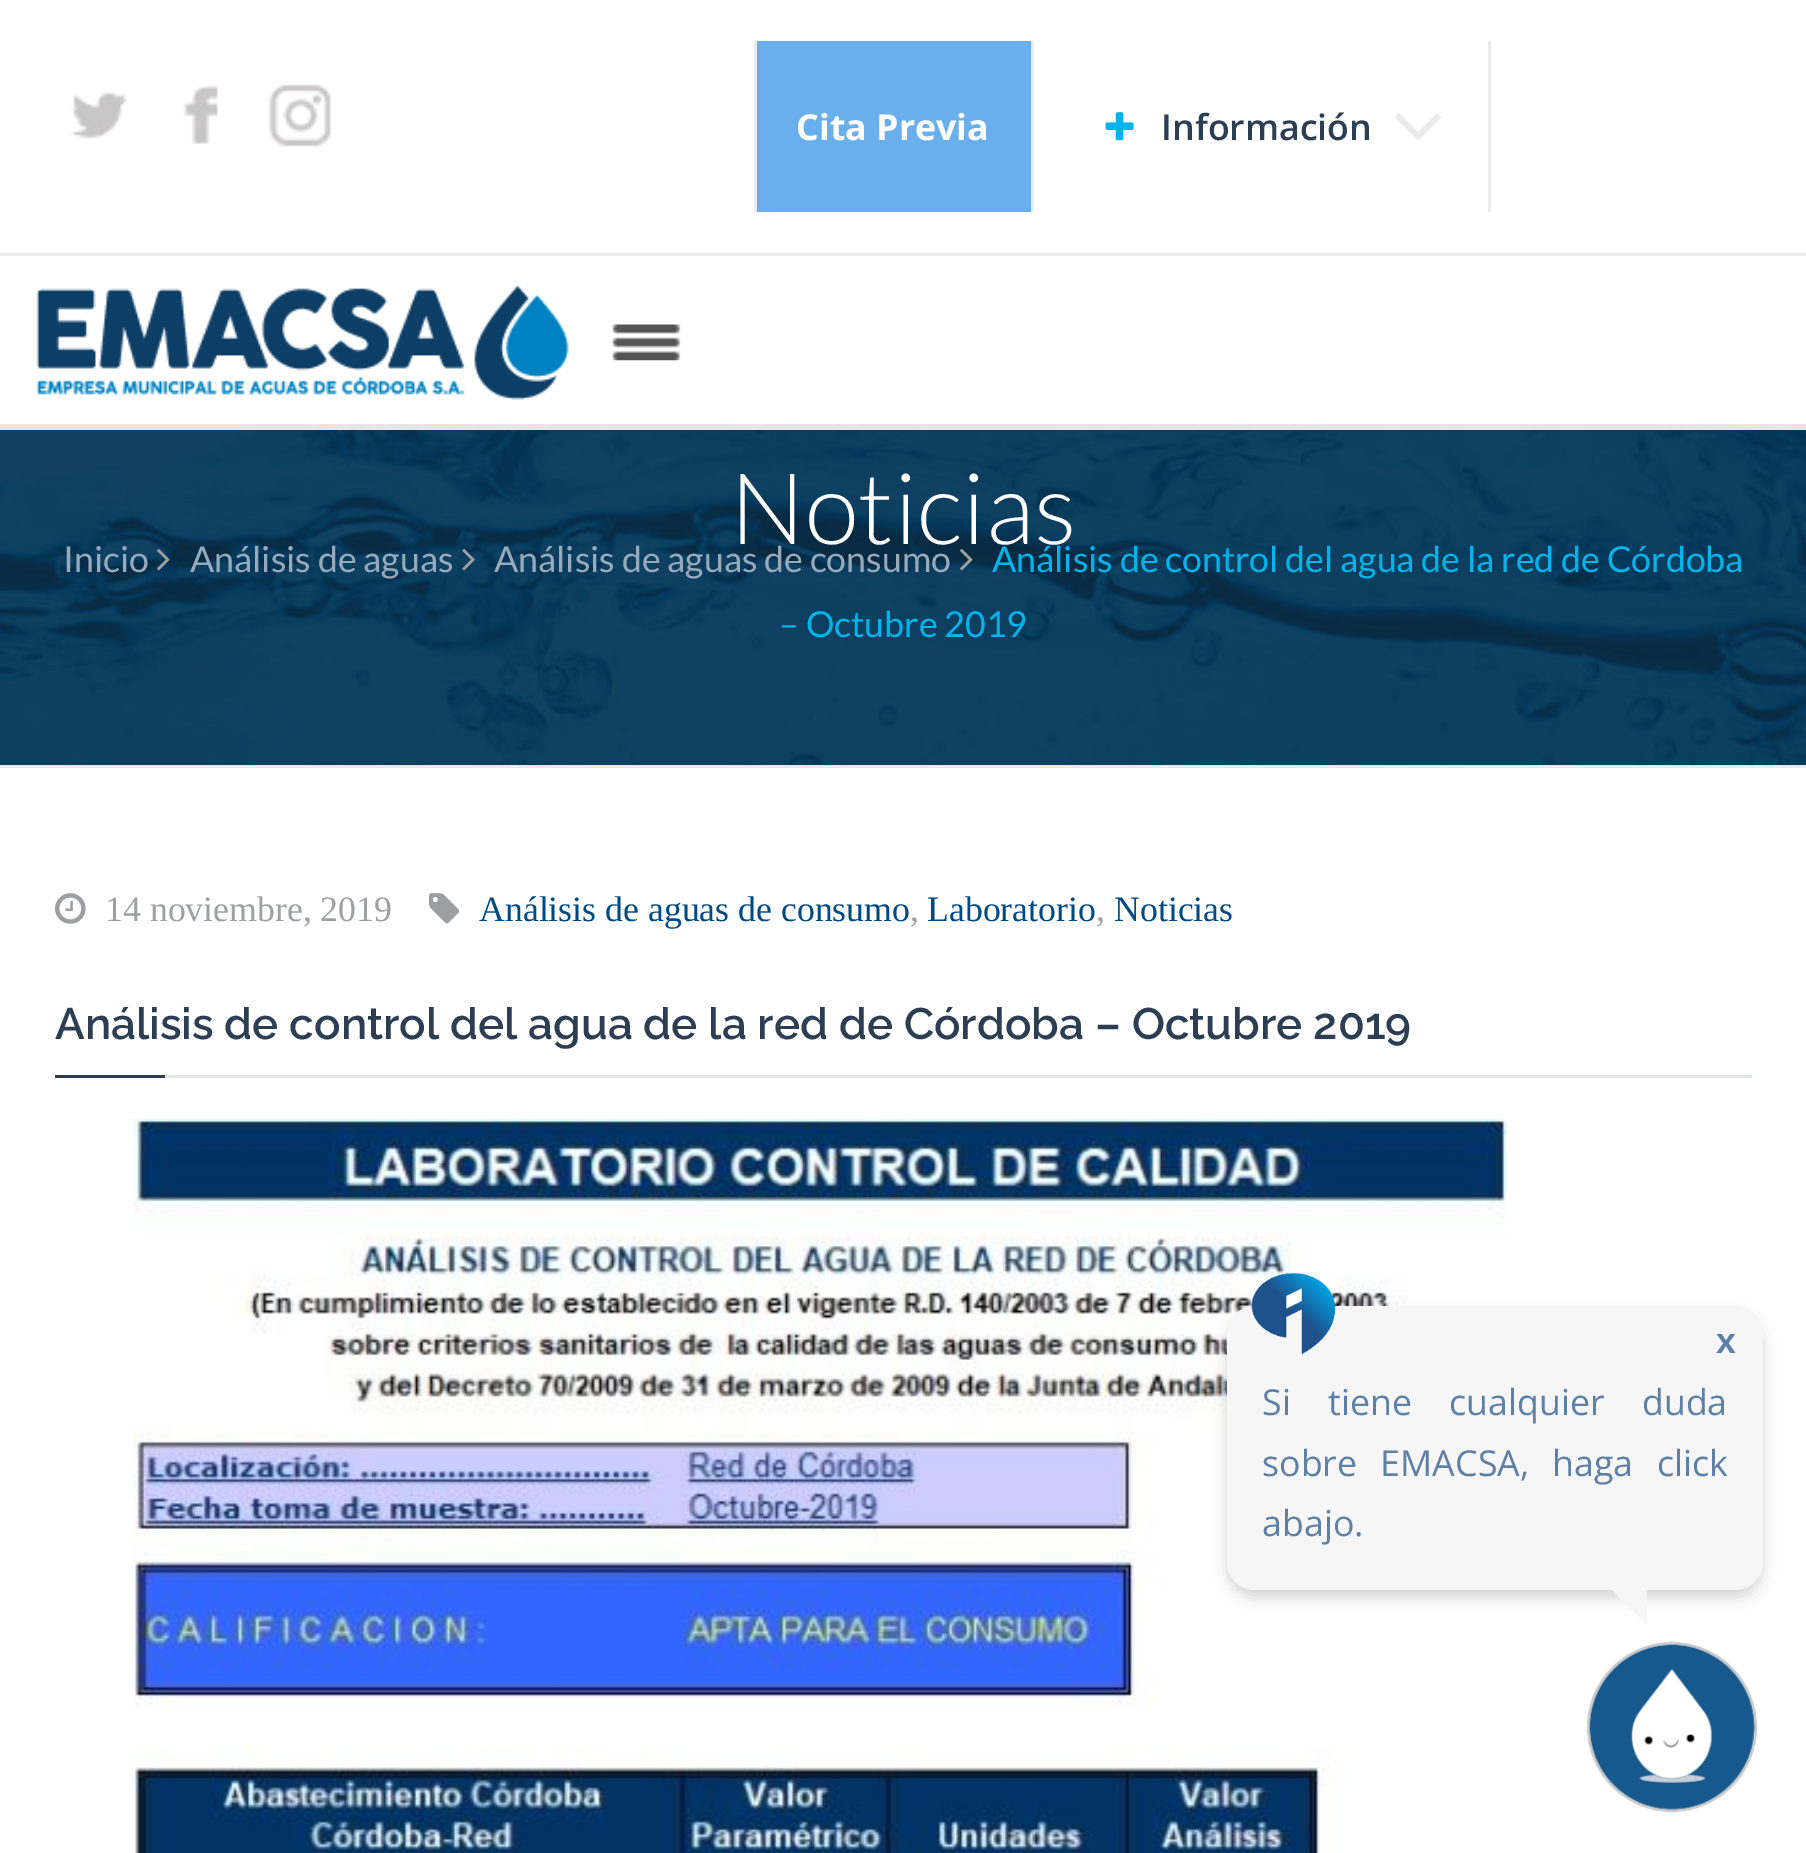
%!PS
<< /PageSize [1806 1853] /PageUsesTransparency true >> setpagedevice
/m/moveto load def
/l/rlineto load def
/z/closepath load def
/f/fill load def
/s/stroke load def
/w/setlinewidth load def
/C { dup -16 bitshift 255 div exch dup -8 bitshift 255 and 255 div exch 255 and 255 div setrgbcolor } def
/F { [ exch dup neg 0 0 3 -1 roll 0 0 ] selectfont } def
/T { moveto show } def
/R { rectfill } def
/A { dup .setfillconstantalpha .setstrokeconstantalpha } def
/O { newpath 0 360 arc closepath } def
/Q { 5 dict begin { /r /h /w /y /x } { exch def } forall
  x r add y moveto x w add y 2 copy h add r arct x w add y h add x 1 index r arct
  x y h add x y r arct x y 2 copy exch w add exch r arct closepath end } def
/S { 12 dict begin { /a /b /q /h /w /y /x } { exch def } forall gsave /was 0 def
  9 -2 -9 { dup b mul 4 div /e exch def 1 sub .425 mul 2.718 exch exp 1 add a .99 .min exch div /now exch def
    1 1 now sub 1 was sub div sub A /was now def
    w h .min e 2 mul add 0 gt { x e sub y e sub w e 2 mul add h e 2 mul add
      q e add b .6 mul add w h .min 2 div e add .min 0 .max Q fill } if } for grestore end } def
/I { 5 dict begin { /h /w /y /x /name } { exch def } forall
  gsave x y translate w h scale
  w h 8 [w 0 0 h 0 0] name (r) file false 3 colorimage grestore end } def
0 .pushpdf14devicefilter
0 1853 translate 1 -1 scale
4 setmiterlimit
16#FFFFFF C
0 0 1806 1853 R
16#EBEBEB C
0 253 1806 3 R
(1.rgb) 71 92 57 47 I
(2.rgb) 183 85 35 59 I
(3.rgb) 268 84 63 63 I
16#69AFEC C
757 41 274 171 R
16#EBEBEB C
754 41 3 171 R
/OpenSans-Bold 35.75 F
16#FFFFFF C
(Cita Previa) 796 140 T
16#EBEBEB C
1488 41 3 171 R
1031 41 3 171 R
(4.rgb) 1105 112 29 29 I
/OpenSans-SemiBold 35.75 F
16#2D3E52 C
(Información) 1161 140 T
(5.rgb) 1395 113 46 27 I
16#E6E6E6 C
0 424 1806 6 R
(6.rgb) 36 285 533 115 I
(7.rgb) 612 324 69 37 I
(8.rgb) 0 430 1806 335 I
16#E9E9E9 C
0 765 1806 3 R
/Lato-Light 99 F
16#FFFFFF C
(Noticias) 730 544 T
/Lato-Regular 35.75 F
16#96AABC C
(Inicio) 63 572 T
(9.rgb) 157 549 13 22 I
(Análisis de aguas) 190 572 T
(10.rgb) 462 549 13 22 I
(Análisis de aguas de consumo) 494 572 T
(11.rgb) 960 549 13 22 I
16#03B4EA C
(Análisis de control del agua de la red de Córdoba) 992 572 T
(– Octubre 2019) 779 637 T
(12.rgb) 55 893 31 31 I
/LiberationSerif-Regular 35.75 F
16#9D9FA2 C
(14 noviembre, 2019) 105 921 T
(13.rgb) 429 893 31 31 I
16#004A83 C
(Análisis de aguas de consumo) 479 921 T
16#9D9FA2 C
(,) 910 921 T
16#004A83 C
(Laboratorio) 927 921 T
16#9D9FA2 C
(,) 1096 921 T
16#004A83 C
(Noticias) 1114 921 T
16#E3E6E6 C
165 1075 1587 3 R
/Raleway-SemiBold 44 F
16#2D3E52 C
(Análisis de control del agua de la red de Córdoba – Octubre 2019) 55 1039 T
55 1075 110 3 R
(14.rgb) 132 1119 1376 734 I
16#000000 C
1227 1315 536 283 28 7 .16 S
16#F6F6F6 C
1227 1306 536 284 28 Q f
(15.rgb) 1251 1272 85 83 I
/LiberationSans-Bold 35.75 F
16#5E80A5 C
(x) 1716 1353 T
/OpenSans-Regular 35.75 F
1262 1415 m 28 0 32 (Si tiene cualquier duda) widthshow
1262 1476 m 14 0 32 (sobre EMACSA, haga click) widthshow
(abajo.) 1262 1536 T
16#F6F6F6 C
1592 1570 m 55 0 l -27 28 l z f
1647 1570 m 0 55 l -27 -27 l z f
16#CCCCCC C
3 w
1672 1727 83.5 O s
(16.rgb) 1589 1644 166 166 I
.poppdf14devicefilter showpage
